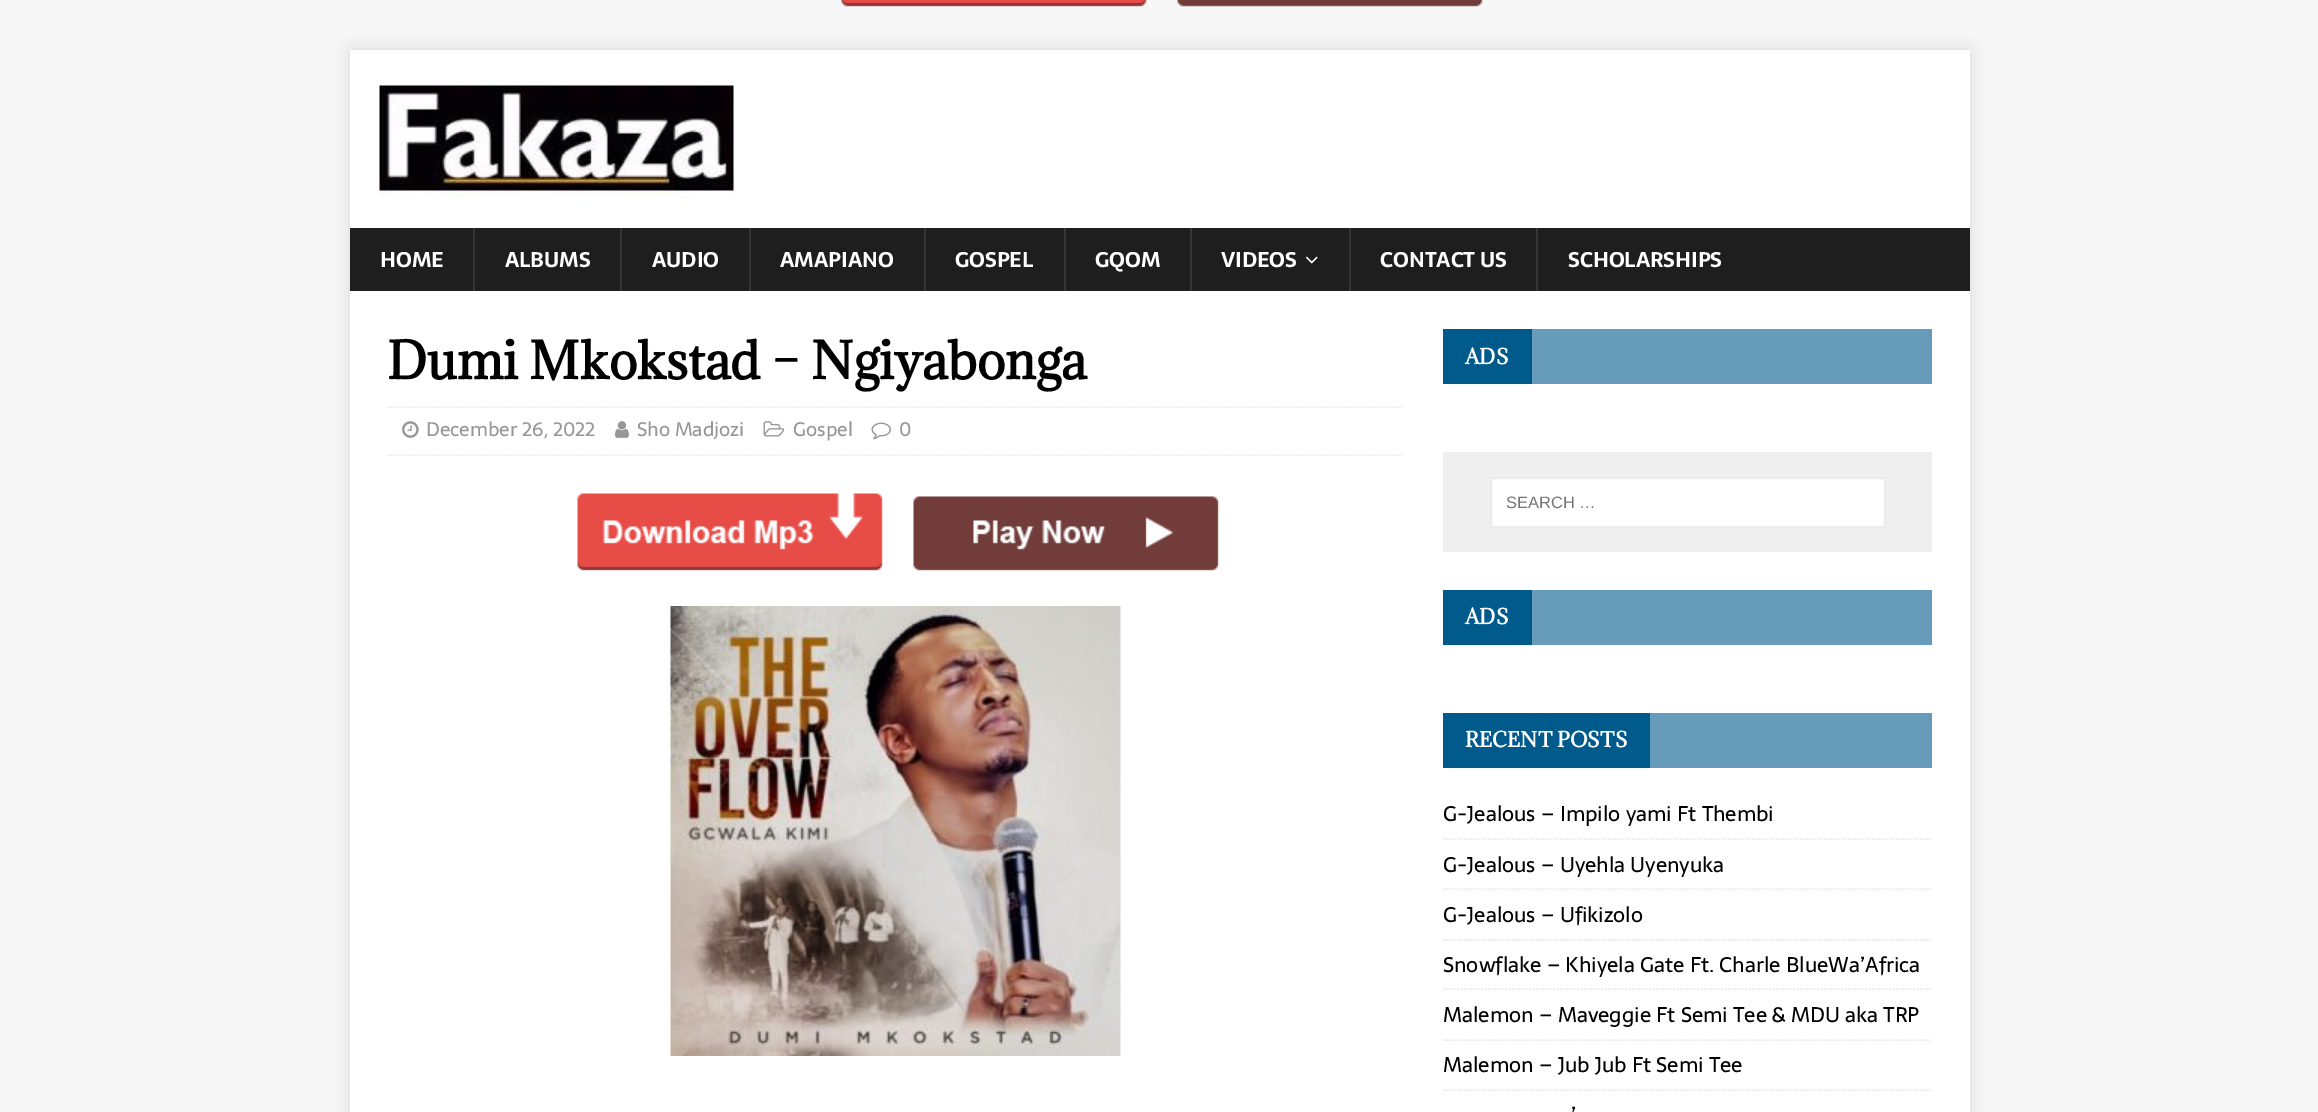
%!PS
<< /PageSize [2318 1112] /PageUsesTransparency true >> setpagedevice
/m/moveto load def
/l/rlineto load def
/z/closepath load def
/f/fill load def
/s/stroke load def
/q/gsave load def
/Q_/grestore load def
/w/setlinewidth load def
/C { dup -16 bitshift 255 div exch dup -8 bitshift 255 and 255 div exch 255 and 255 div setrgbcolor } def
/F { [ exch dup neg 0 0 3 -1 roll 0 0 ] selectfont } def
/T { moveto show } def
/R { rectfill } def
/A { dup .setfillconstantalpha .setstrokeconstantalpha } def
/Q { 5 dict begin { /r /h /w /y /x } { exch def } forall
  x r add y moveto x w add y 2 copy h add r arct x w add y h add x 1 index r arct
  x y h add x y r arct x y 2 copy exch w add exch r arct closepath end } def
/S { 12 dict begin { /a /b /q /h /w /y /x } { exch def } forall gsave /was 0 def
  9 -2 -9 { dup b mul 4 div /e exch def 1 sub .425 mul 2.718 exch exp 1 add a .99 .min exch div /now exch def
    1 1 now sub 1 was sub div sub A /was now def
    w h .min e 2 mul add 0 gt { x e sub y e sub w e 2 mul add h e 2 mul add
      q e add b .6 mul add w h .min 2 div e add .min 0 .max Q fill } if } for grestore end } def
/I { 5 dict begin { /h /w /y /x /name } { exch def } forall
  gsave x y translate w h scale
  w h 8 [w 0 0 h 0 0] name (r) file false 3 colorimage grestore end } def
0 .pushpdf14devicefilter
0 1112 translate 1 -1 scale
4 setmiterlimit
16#F7F7F7 C
0 0 2318 1112 R
(1.rgb) 841 0 642 7 I
16#323232 C
350 50 1620 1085 0 7.5 .17 S
16#FFFFFF C
350 50 1620 178 R
(2.rgb) 379 80 356 118 I
16#1F1E1E C
350 228 1620 63 R
/Sarala-Bold 21 F
16#FFFFFF C
(HOME) 380 267 T
16#353535 C
473 228 2 63 R
16#FFFFFF C
(ALBUMS) 505 267 T
16#353535 C
620 228 2 63 R
16#FFFFFF C
(AUDIO) 652 267 T
16#353535 C
749 228 2 63 R
16#FFFFFF C
(AMAPIANO) 780 267 T
16#353535 C
924 228 2 63 R
16#FFFFFF C
(GOSPEL) 955 267 T
16#353535 C
1064 228 2 63 R
16#FFFFFF C
(GQOM) 1095 267 T
16#353535 C
1190 228 2 63 R
16#FFFFFF C
(VIDEOS) 1221 267 T
(3.rgb) 1305 256 13 8 I
16#353535 C
1349 228 2 63 R
16#FFFFFF C
(CONTACT US) 1380 267 T
16#353535 C
1536 228 2 63 R
16#FFFFFF C
(SCHOLARSHIPS) 1568 267 T
350 291 1620 821 R
/Adamina-Bold 48 F
16#000000 C
(Dumi Mkokstad – Ngiyabonga) 387 379 T
16#EBEBEB C
1.5 w
[1.5 1.5] 0 setdash
387 407 m 1017 0 l s
387 455 m 1017 0 l s
(4.rgb) 402 421 17 17 I
/Sarala-Regular 19.5 F
16#979797 C
(December 26, 2022) 426 436 T
(5.rgb) 615 421 14 17 I
(Sho Madjozi) 637 436 T
(6.rgb) 763 421 22 16 I
(Gospel) 793 436 T
(7.rgb) 871 422 20 18 I
(0) 899 436 T
(8.rgb) 577 493 642 78 I
(9.rgb) 670 606 451 450 I
16#669CBA C
1532 329 400 55 R
16#005A8C C
1443 329 89 55 R
/Adamina-Bold 19.5 F
16#FFFFFF C
(ADS) 1465 364 T
16#EFEFEF C
1443 452 489 100 R
16#FFFFFF C
1491 478 m 394 0 l 0 49 l -394 0 l z q f Q_
16#EBEBEB C
2 w
[] 0 setdash
s
/LiberationSans-Regular 16.5 F
16#757575 C
(SEARCH …) 1506 508 T
16#669CBA C
1532 590 400 55 R
16#005A8C C
1443 590 89 55 R
/Adamina-Bold 19.5 F
16#FFFFFF C
(ADS) 1465 624 T
16#669CBA C
1650 713 282 55 R
16#005A8C C
1443 713 207 55 R
16#FFFFFF C
(RECENT POSTS) 1465 747 T
16#E5E5E5 C
1.5 w
[1.5 1.5] 0 setdash
1443 839 m 489 0 l s
/Sarala-Regular 21 F
16#000000 C
(G-Jealous – Impilo yami Ft Thembi) 1443 821 T
16#E5E5E5 C
1443 889 m 489 0 l s
16#000000 C
(G-Jealous – Uyehla Uyenyuka) 1443 872 T
16#E5E5E5 C
1443 940 m 489 0 l s
16#000000 C
(G-Jealous – Ufikizolo) 1443 922 T
16#E5E5E5 C
1443 989 m 489 0 l s
16#000000 C
(Snowflake – Khiyela Gate Ft. Charle BlueWa’Africa) 1443 972 T
16#E5E5E5 C
1443 1040 m 489 0 l s
16#000000 C
(Malemon – Maveggie Ft Semi Tee & MDU aka TRP) 1443 1022 T
16#E5E5E5 C
1443 1090 m 489 0 l s
16#000000 C
(Malemon – Jub Jub Ft Semi Tee) 1443 1072 T
(’) 1571 1122 T
.poppdf14devicefilter showpage
